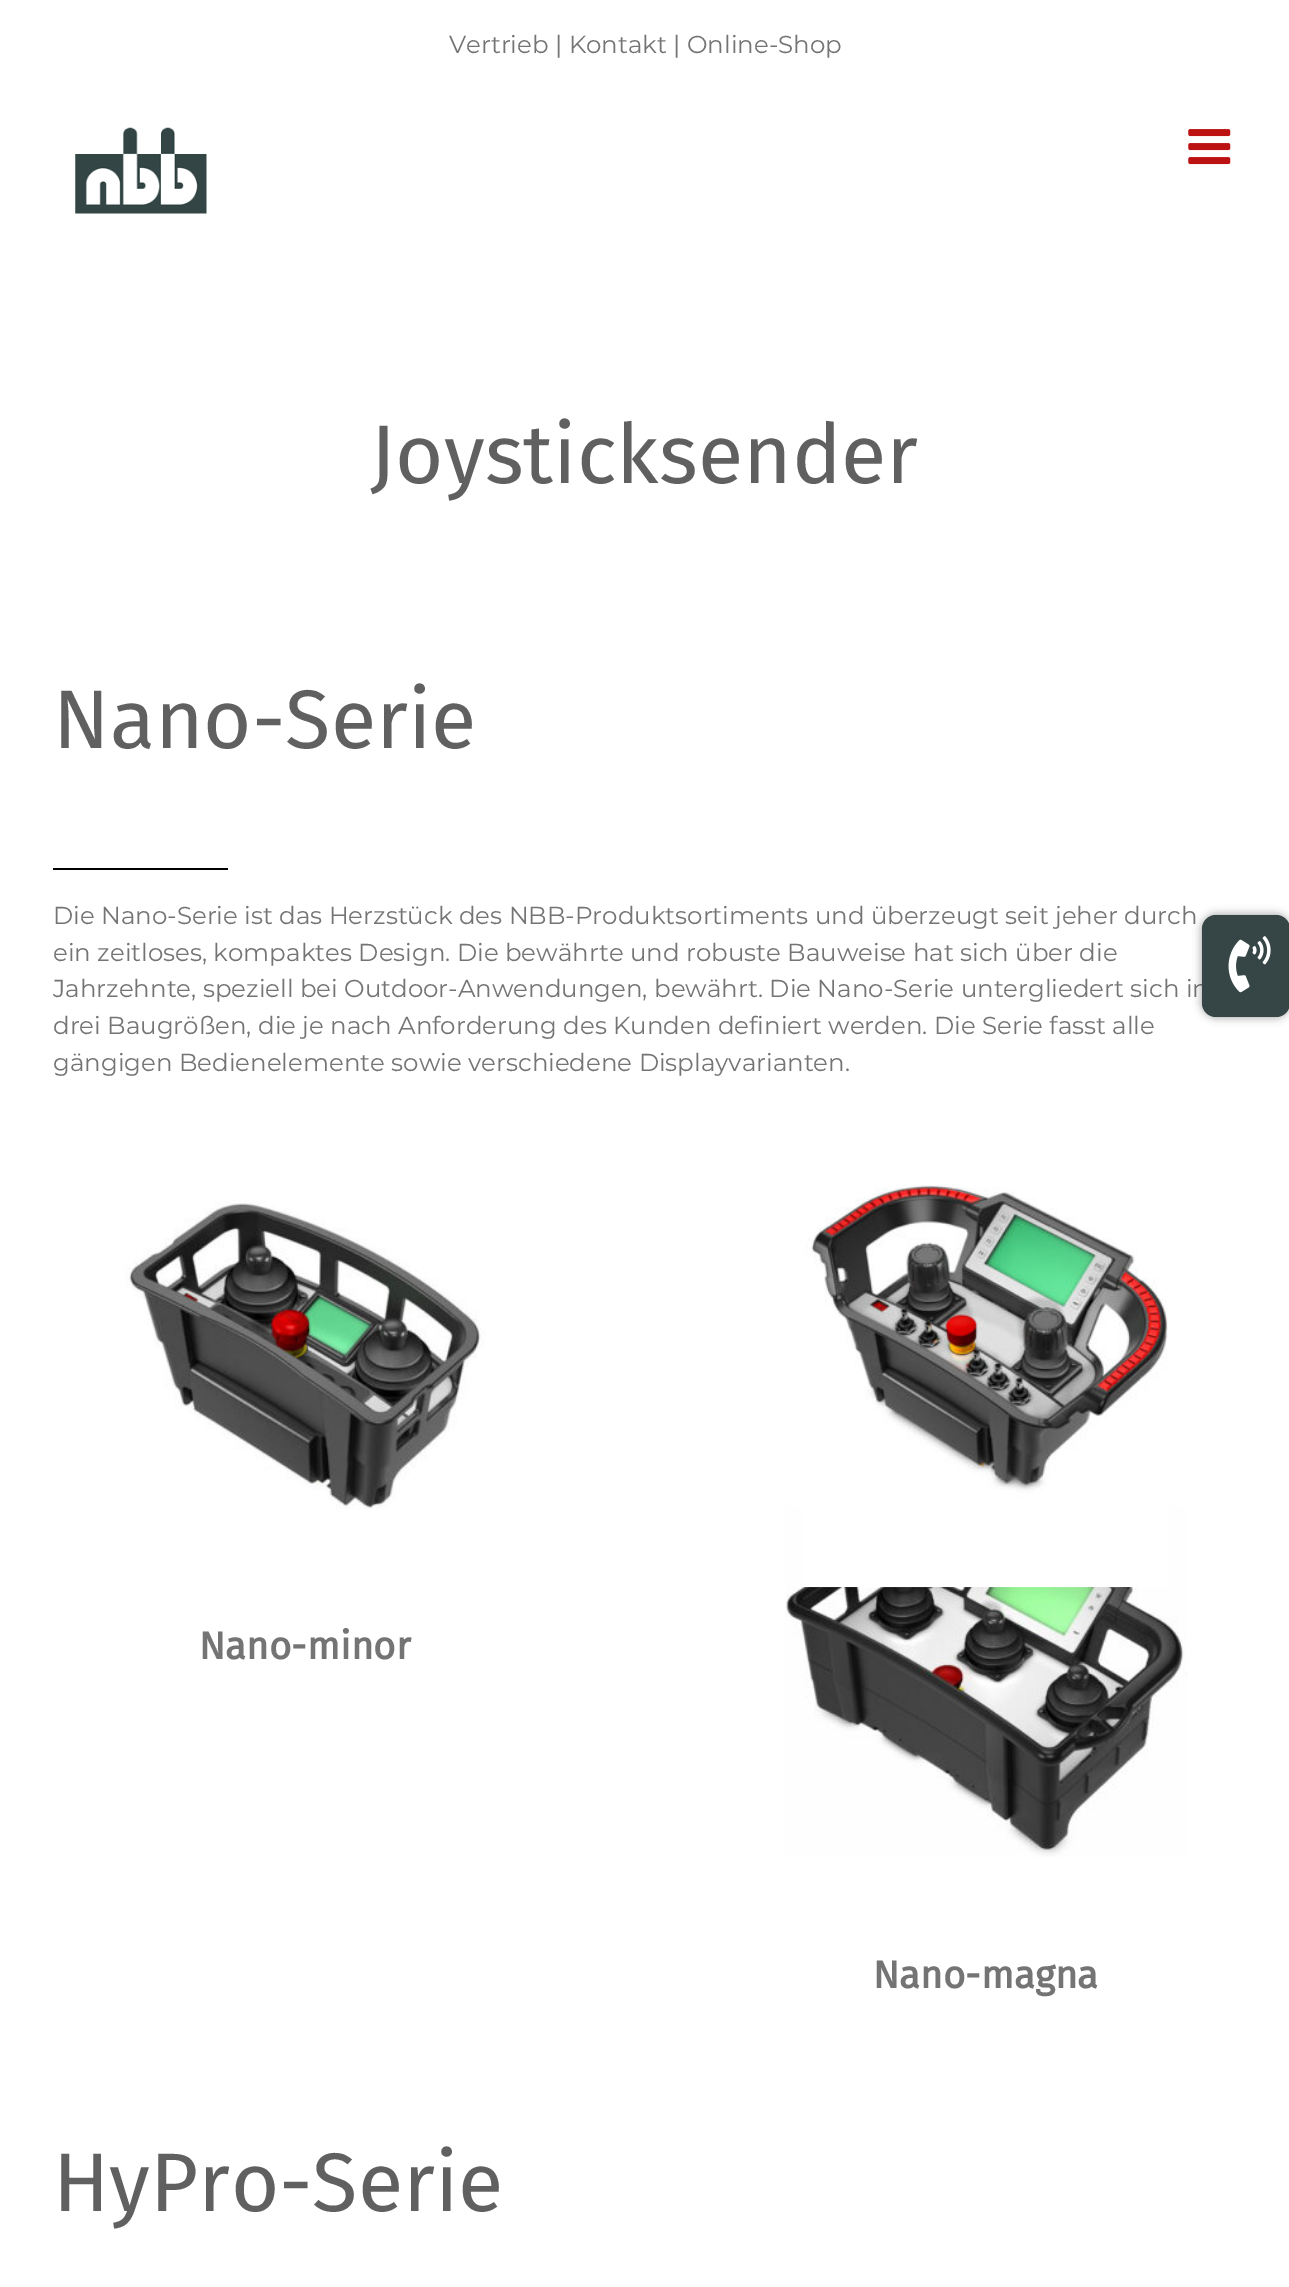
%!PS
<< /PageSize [1289 2287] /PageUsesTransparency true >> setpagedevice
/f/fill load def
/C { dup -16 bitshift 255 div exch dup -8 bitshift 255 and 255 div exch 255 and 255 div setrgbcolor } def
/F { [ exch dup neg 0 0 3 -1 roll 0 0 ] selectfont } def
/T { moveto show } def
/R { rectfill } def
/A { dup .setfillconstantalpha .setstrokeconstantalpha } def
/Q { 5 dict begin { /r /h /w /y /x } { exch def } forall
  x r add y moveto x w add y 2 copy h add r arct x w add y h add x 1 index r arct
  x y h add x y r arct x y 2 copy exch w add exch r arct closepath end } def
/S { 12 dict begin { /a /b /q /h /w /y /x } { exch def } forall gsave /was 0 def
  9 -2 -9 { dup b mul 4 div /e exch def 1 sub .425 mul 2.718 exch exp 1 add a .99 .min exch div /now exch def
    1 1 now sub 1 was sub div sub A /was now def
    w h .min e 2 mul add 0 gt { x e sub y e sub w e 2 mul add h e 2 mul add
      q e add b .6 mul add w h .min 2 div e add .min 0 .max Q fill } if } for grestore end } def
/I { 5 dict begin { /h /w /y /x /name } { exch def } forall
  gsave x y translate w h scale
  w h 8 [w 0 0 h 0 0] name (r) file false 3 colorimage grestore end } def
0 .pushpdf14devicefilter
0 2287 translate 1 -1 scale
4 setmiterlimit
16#FFFFFF C
0 0 1289 2287 R
/Montserrat-Regular 24.5 F
16#747474 C
(Vertrieb | Kontakt | Online-Shop) 449 53 T
(1.rgb) 75 127 132 87 I
(2.rgb) 1188 129 43 36 I
/FiraSans-Regular 83 F
16#606060 C
(Joysticksender) 370 483 T
(Nano-Serie) 53 748 T
16#000000 C
53 868 175 2 R
/Montserrat-Regular 24.5 F
16#747474 C
(Die Nano-Serie ist das Herzstück des NBB-Produktsortiments und überzeugt seit jeher durch) 53 924 T
(ein zeitloses, kompaktes Design. Die bewährte und robuste Bauweise hat sich über die) 53 961 T
(Jahrzehnte, speziell bei Outdoor-Anwendungen, bewährt. Die Nano-Serie untergliedert sich in) 53 997 T
(drei Baugrößen, die je nach Anforderung des Kunden definiert werden. Die Serie fasst alle) 53 1034 T
(gängigen Bedienelemente sowie verschiedene Displayvarianten.) 53 1071 T
(5.rgb) 785 1506 402 351 I
(3.rgb) 802 1185 367 403 I
(4.rgb) 125 1200 361 310 I
/FiraSans-Bold 38.5 F
(Nano-minor) 199 1659 T
(Nano-magna) 873 1988 T
/FiraSans-Regular 83 F
16#606060 C
(HyPro-Serie) 53 2211 T
16#000000 C
1202 915 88 102 14 4.5 .4 S
16#364545 C
1202 915 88 102 14 Q f
(6.rgb) 1228 936 43 57 I
.poppdf14devicefilter showpage
